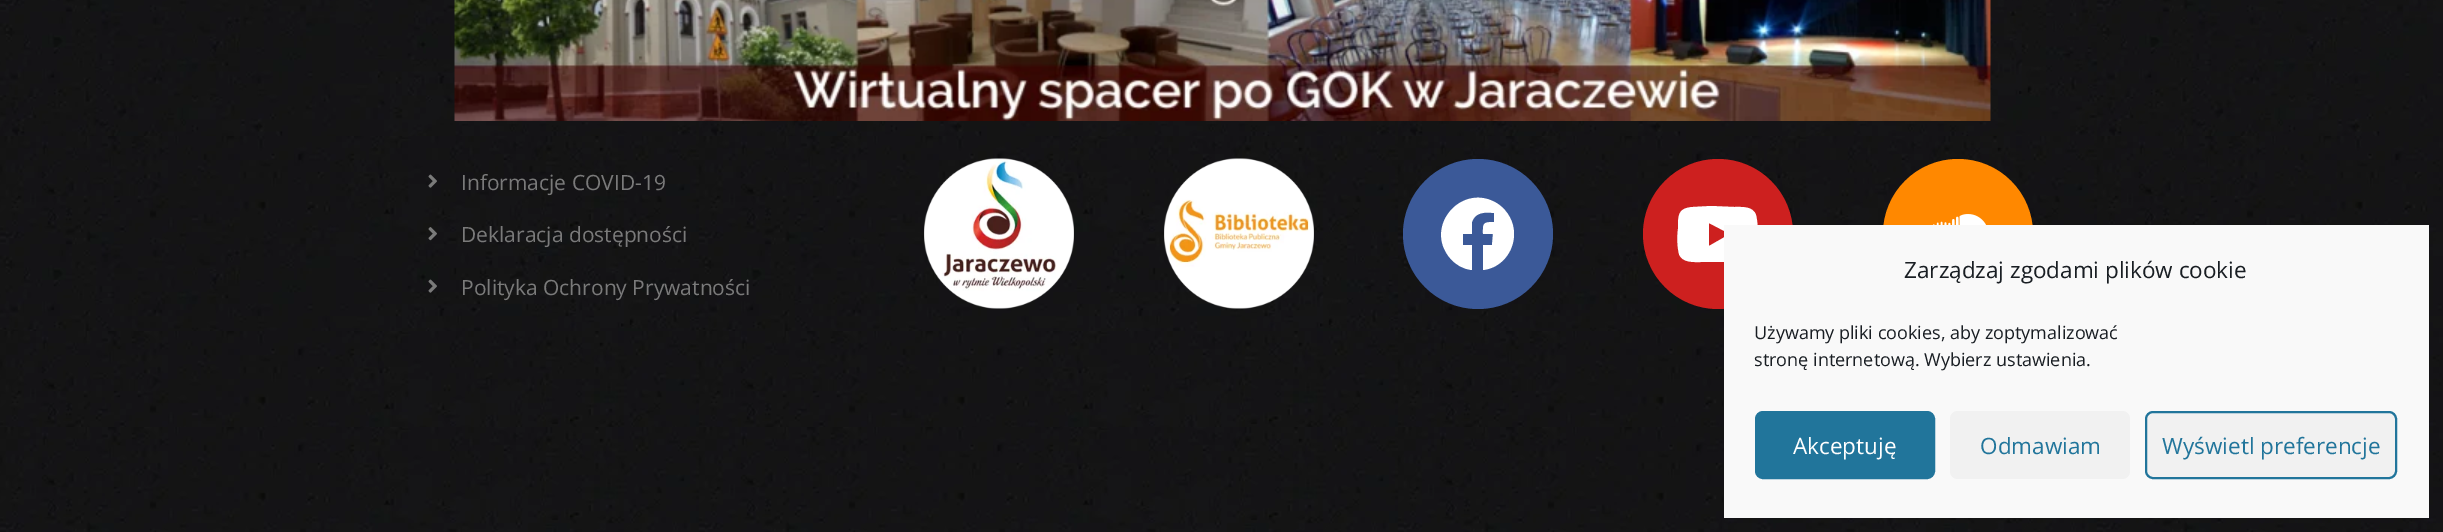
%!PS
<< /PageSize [2443 532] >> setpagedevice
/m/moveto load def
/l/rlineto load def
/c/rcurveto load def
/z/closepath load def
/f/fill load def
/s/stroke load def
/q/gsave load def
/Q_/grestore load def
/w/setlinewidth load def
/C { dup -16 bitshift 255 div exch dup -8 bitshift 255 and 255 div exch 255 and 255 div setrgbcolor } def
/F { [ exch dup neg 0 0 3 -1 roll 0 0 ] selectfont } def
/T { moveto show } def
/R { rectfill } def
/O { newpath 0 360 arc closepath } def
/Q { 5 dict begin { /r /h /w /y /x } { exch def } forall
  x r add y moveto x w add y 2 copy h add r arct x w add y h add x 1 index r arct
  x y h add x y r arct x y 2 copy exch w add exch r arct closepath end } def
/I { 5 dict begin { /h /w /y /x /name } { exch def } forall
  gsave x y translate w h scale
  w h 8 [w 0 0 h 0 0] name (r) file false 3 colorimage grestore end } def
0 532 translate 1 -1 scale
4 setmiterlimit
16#FFFFFF C
0 0 2443 532 R
(1.rgb) 0 0 2443 136 I
(2.rgb) 454 0 1537 121 I
(3.rgb) 0 136 2443 195 I
(4.rgb) 428 174 9 14 I
/OpenSans-Regular 21 F
16#7A7A7A C
(Informacje COVID-19) 461 190 T
(5.rgb) 428 227 9 14 I
(Deklaracja dostępności) 461 242 T
(6.rgb) 428 279 9 14 I
(Polityka Ochrony Prywatności) 461 295 T
(7.rgb) 924 158 150 151 I
(8.rgb) 1164 158 150 151 I
16#3B5998 C
1478 234 75 O f
16#FFFFFF C
1514 234 m 0 18 -13 34 -31 36 c 0 -25 l 9 0 l 1 -11 l -10 0 l 0 -10 -1 -12 11 -12 c 0 -9 l -9 -1 -19 -1 -22 9 c 0 12 l -9 0 l 0 11 l 9 0 l 0 25 l -9 -1 -16 -5 -22 -12 c -27 -32 13 -77 48 -54 c 10 7 16 18 16 30 c z f
16#CD201F C
1718 234 75 O f
16#FFFFFF C
1756 215 m 2 8 2 17 1 25 c 0 14 0 21 -15 22 c -18 0 l -23 0 l -7 0 -19 1 -22 -8 c -2 -8 -2 -17 -1 -25 c 0 -14 0 -21 15 -22 c 18 -1 l 23 1 l 8 0 19 -1 22 8 c z 1709 246 m 21 -12 l -21 -11 l z f
16#FF8800 C
1958 234 75 O f
(9.rgb) 1933 214 53 11 I
(10.rgb) 0 331 2443 96 I
(11.rgb) 0 427 2443 105 I
16#F9F9F9 C
1724 225 705 293 R
/OpenSans-Regular 22.5 F
16#191E23 C
(Zarządzaj zgodami plików cookie) 1904 278 T
/OpenSans-Regular 18 F
(Używamy pliki cookies, aby zoptymalizować) 1754 339 T
(stronę internetową. Wybierz ustawienia.) 1754 366 T
16#21759B C
1756 412 178 66 7 Q q f Q_
2 w
s
/OpenSans-Regular 22.5 F
16#FFFFFF C
(Akceptuję) 1793 454 T
16#F1F1F1 C
1950 411 180 68 8 Q f
16#21759B C
(Odmawiam) 1980 454 T
16#F1F1F1 C
2146 412 250 66 7 Q q f Q_
16#21759B C
s
(Wyświetl preferencje) 2162 454 T
showpage
